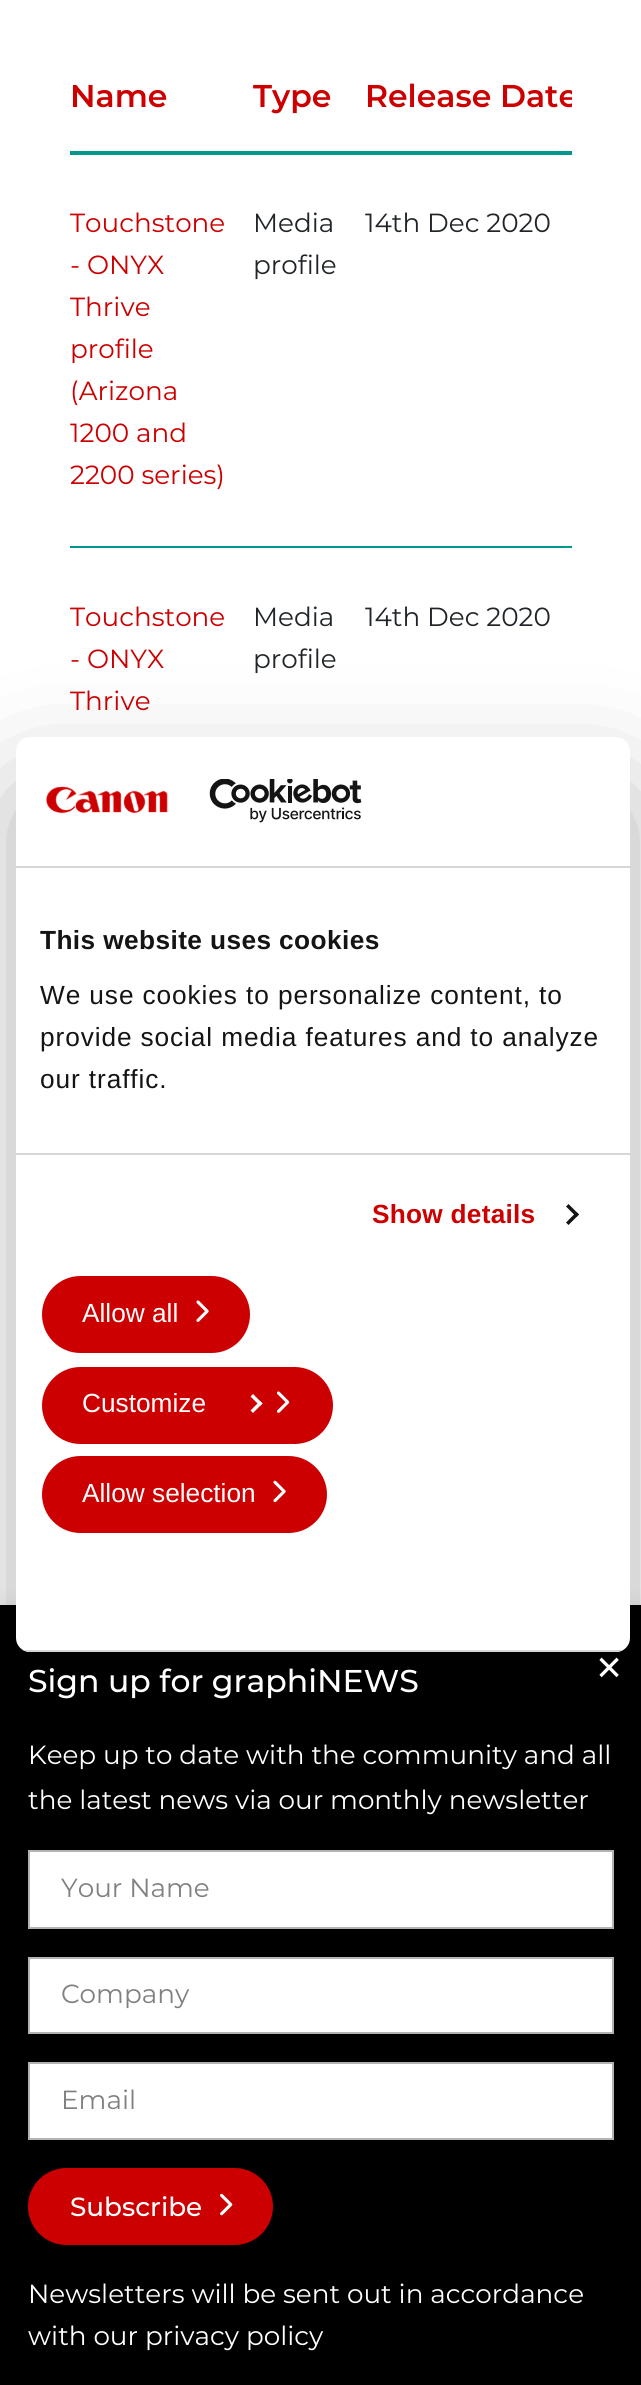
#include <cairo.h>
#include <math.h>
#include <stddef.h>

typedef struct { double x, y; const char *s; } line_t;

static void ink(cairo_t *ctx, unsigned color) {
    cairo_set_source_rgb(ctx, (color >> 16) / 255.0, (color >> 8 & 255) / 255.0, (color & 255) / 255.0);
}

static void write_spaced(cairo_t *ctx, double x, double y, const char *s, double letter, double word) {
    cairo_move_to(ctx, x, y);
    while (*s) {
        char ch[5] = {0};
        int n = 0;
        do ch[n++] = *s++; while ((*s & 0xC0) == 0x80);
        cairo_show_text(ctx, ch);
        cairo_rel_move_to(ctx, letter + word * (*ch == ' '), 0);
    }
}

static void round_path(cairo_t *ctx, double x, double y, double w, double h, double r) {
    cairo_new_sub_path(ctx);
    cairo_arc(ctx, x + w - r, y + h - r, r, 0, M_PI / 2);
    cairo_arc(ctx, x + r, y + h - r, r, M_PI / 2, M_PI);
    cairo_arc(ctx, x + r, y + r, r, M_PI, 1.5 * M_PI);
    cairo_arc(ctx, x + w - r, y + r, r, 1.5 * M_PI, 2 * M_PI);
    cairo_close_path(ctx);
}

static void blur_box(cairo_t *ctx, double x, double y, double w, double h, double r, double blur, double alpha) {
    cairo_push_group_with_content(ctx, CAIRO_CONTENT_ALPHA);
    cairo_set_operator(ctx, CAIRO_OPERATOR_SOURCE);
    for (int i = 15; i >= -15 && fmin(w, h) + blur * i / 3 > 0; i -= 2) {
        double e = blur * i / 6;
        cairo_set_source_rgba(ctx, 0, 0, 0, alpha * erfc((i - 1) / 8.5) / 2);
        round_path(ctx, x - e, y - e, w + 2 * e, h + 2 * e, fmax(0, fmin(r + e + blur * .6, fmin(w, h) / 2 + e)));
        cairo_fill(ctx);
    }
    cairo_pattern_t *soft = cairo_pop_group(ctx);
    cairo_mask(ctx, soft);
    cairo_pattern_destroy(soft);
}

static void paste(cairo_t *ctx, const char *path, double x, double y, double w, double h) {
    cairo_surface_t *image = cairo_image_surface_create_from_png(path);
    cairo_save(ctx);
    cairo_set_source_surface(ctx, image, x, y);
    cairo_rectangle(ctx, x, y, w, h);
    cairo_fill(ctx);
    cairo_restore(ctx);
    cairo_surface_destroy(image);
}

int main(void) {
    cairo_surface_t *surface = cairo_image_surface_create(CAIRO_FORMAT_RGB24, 641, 2385);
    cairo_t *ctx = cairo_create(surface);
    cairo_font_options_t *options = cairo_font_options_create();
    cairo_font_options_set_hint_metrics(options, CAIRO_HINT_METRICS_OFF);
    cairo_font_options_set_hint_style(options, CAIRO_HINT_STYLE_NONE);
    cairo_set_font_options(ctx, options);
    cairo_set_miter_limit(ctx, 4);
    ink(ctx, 0xFFFFFF);
    cairo_paint(ctx);
    cairo_select_font_face(ctx, "Montserrat SemiBold", CAIRO_FONT_SLANT_NORMAL, CAIRO_FONT_WEIGHT_NORMAL);
    cairo_set_font_size(ctx, 31.5);
    ink(ctx, 0xCC0000);
    cairo_move_to(ctx, 70, 107);
    cairo_show_text(ctx, "Name");
    cairo_move_to(ctx, 253, 107);
    cairo_show_text(ctx, "Type");
    ink(ctx, 0x00988E);
    cairo_rectangle(ctx, 70, 151, 502, 4);
    cairo_fill(ctx);
    cairo_save(ctx);
    cairo_rectangle(ctx, 70, 44, 502, 1472);
    cairo_clip(ctx);
    ink(ctx, 0xCC0000);
    cairo_move_to(ctx, 365, 107);
    cairo_show_text(ctx, "Release Date");
    cairo_restore(ctx);
    cairo_select_font_face(ctx, "Montserrat", CAIRO_FONT_SLANT_NORMAL, CAIRO_FONT_WEIGHT_NORMAL);
    cairo_set_font_size(ctx, 26.25);
    ink(ctx, 0xCC0000);
    {
        static const line_t items[] = {
            {70, 232, "Touchstone"},
            {70, 274, "- ONYX"},
            {70, 316, "Thrive"},
            {70, 358, "profile"},
            {70, 400, "(Arizona"},
            {70, 442, "1200 and"},
            {70, 484, "2200 series)"},
        };
        for (size_t i = 0; i < sizeof items / sizeof *items; i++) {
            cairo_move_to(ctx, items[i].x, items[i].y);
            cairo_show_text(ctx, items[i].s);
        }
    }
    ink(ctx, 0x212529);
    {
        static const line_t items[] = {
            {253, 232, "Media"},
            {253, 274, "profile"},
            {365, 232, "14th Dec 2020"},
        };
        for (size_t i = 0; i < sizeof items / sizeof *items; i++) {
            cairo_move_to(ctx, items[i].x, items[i].y);
            cairo_show_text(ctx, items[i].s);
        }
    }
    ink(ctx, 0xCC0000);
    {
        static const line_t items[] = {
            {70, 626, "Touchstone"},
            {70, 668, "- ONYX"},
            {70, 710, "Thrive"},
        };
        for (size_t i = 0; i < sizeof items / sizeof *items; i++) {
            cairo_move_to(ctx, items[i].x, items[i].y);
            cairo_show_text(ctx, items[i].s);
        }
    }
    ink(ctx, 0x212529);
    cairo_move_to(ctx, 253, 626);
    cairo_show_text(ctx, "Media");
    cairo_move_to(ctx, 253, 668);
    cairo_show_text(ctx, "profile");
    ink(ctx, 0x00988E);
    cairo_rectangle(ctx, 70, 546, 502, 2);
    cairo_fill(ctx);
    ink(ctx, 0x212529);
    cairo_move_to(ctx, 365, 626);
    cairo_show_text(ctx, "14th Dec 2020");
    ink(ctx, 0x000000);
    blur_box(ctx, 0, 1605, 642, 780, 0, 9, 0.1);
    ink(ctx, 0x000000);
    cairo_rectangle(ctx, 0, 1605, 641, 780);
    cairo_fill(ctx);
    ink(ctx, 0xFFFFFF);
    cairo_rectangle(ctx, 29, 1851, 584, 77);
    cairo_fill_preserve(ctx);
    ink(ctx, 0xB3B3B3);
    cairo_stroke(ctx);
    ink(ctx, 0x000000);
    blur_box(ctx, 16, 793, 614, 915, 14, 59.5, 0.3);
    ink(ctx, 0xFFFFFF);
    round_path(ctx, 16, 737, 614, 915, 14);
    cairo_fill(ctx);
    ink(ctx, 0xD6D6D6);
    cairo_rectangle(ctx, 16, 866, 614, 2);
    cairo_fill(ctx);
    paste(ctx, "media/1.png", 46, 786, 122, 28);
    paste(ctx, "media/2.png", 209, 779, 153, 44);
    cairo_rectangle(ctx, 16, 1153, 614, 2);
    cairo_fill(ctx);
    cairo_select_font_face(ctx, "Liberation Sans", CAIRO_FONT_SLANT_NORMAL, CAIRO_FONT_WEIGHT_BOLD);
    ink(ctx, 0x141414);
    write_spaced(ctx, 40, 949, "This website uses cookies", 0.4, 0);
    cairo_select_font_face(ctx, "Liberation Sans", CAIRO_FONT_SLANT_NORMAL, CAIRO_FONT_WEIGHT_NORMAL);
    {
        static const line_t items[] = {
            {40, 1004, "We use cookies to personalize content, to"},
            {40, 1046, "provide social media features and to analyze"},
            {40, 1088, "our traffic."},
        };
        for (size_t i = 0; i < sizeof items / sizeof *items; i++) {
            write_spaced(ctx, items[i].x, items[i].y, items[i].s, 0.9, 0);
        }
    }
    cairo_select_font_face(ctx, "Liberation Sans", CAIRO_FONT_SLANT_NORMAL, CAIRO_FONT_WEIGHT_BOLD);
    ink(ctx, 0xCC0000);
    write_spaced(ctx, 372, 1223, "Show details", 0.25, 0);
    ink(ctx, 0x141414);
    cairo_new_path(ctx);
    cairo_move_to(ctx, 568.5, 1204);
    cairo_line_to(ctx, 579, 1214.5);
    cairo_line_to(ctx, 576.5, 1217);
    cairo_line_to(ctx, 566, 1206.5);
    cairo_close_path(ctx);
    cairo_fill(ctx);
    cairo_new_path(ctx);
    cairo_move_to(ctx, 576.5, 1212);
    cairo_line_to(ctx, 579, 1214.5);
    cairo_line_to(ctx, 568.5, 1225);
    cairo_line_to(ctx, 566, 1222.5);
    cairo_close_path(ctx);
    cairo_fill(ctx);
    cairo_save(ctx);
    round_path(ctx, 16, 737, 614, 915, 14);
    cairo_clip(ctx);
    ink(ctx, 0xD6D6D6);
    cairo_rectangle(ctx, 16, 1650, 614, 2);
    cairo_fill(ctx);
    cairo_restore(ctx);
    ink(ctx, 0xCC0000);
    round_path(ctx, 42, 1276, 208, 77, 38.5);
    cairo_fill(ctx);
    cairo_select_font_face(ctx, "Liberation Sans", CAIRO_FONT_SLANT_NORMAL, CAIRO_FONT_WEIGHT_NORMAL);
    ink(ctx, 0xFFFFFF);
    cairo_move_to(ctx, 82, 1322);
    cairo_show_text(ctx, "Allow all");
    paste(ctx, "media/3.png", 196, 1300, 13, 22);
    ink(ctx, 0xCC0000);
    round_path(ctx, 42, 1367, 291, 77, 38.5);
    cairo_fill(ctx);
    ink(ctx, 0xFFFFFF);
    cairo_move_to(ctx, 82, 1412);
    cairo_show_text(ctx, "Customize");
    cairo_new_path(ctx);
    cairo_move_to(ctx, 253, 1394);
    cairo_line_to(ctx, 262.5, 1403.5);
    cairo_line_to(ctx, 260, 1406);
    cairo_line_to(ctx, 250.5, 1396.5);
    cairo_close_path(ctx);
    cairo_fill(ctx);
    cairo_new_path(ctx);
    cairo_move_to(ctx, 260, 1401);
    cairo_line_to(ctx, 262.5, 1403.5);
    cairo_line_to(ctx, 253, 1413);
    cairo_line_to(ctx, 250.5, 1410.5);
    cairo_close_path(ctx);
    cairo_fill(ctx);
    paste(ctx, "media/4.png", 277, 1391, 13, 22);
    ink(ctx, 0xCC0000);
    round_path(ctx, 42, 1456, 285, 77, 38.5);
    cairo_fill(ctx);
    ink(ctx, 0xFFFFFF);
    cairo_move_to(ctx, 82, 1502);
    cairo_show_text(ctx, "Allow selection");
    paste(ctx, "media/5.png", 273, 1480, 13, 23);
    cairo_select_font_face(ctx, "Montserrat Medium", CAIRO_FONT_SLANT_NORMAL, CAIRO_FONT_WEIGHT_NORMAL);
    cairo_set_font_size(ctx, 31.5);
    cairo_move_to(ctx, 28, 1692);
    cairo_show_text(ctx, "Sign up for graphiNEWS");
    cairo_select_font_face(ctx, "Montserrat", CAIRO_FONT_SLANT_NORMAL, CAIRO_FONT_WEIGHT_NORMAL);
    cairo_set_font_size(ctx, 56);
    cairo_move_to(ctx, 593, 1687);
    cairo_show_text(ctx, "×");
    cairo_set_font_size(ctx, 26.25);
    cairo_move_to(ctx, 28, 1764);
    cairo_show_text(ctx, "Keep up to date with the community and all");
    cairo_move_to(ctx, 28, 1809);
    cairo_show_text(ctx, "the latest news via our monthly newsletter");
    ink(ctx, 0x808080);
    cairo_move_to(ctx, 61, 1897);
    cairo_show_text(ctx, "Your Name");
    ink(ctx, 0xFFFFFF);
    cairo_rectangle(ctx, 29, 1958, 584, 75);
    cairo_fill_preserve(ctx);
    ink(ctx, 0xB3B3B3);
    cairo_stroke(ctx);
    ink(ctx, 0x808080);
    cairo_move_to(ctx, 61, 2003);
    cairo_show_text(ctx, "Company");
    ink(ctx, 0xFFFFFF);
    cairo_rectangle(ctx, 29, 2063, 584, 76);
    cairo_fill_preserve(ctx);
    ink(ctx, 0xB3B3B3);
    cairo_stroke(ctx);
    ink(ctx, 0x808080);
    cairo_move_to(ctx, 61, 2109);
    cairo_show_text(ctx, "Email");
    ink(ctx, 0xCC0000);
    round_path(ctx, 28, 2168, 245, 77, 38.5);
    cairo_fill(ctx);
    cairo_select_font_face(ctx, "Montserrat Medium", CAIRO_FONT_SLANT_NORMAL, CAIRO_FONT_WEIGHT_NORMAL);
    ink(ctx, 0xFFFFFF);
    cairo_move_to(ctx, 70, 2216);
    cairo_show_text(ctx, "Subscribe");
    paste(ctx, "media/6.png", 220, 2193, 13, 23);
    cairo_select_font_face(ctx, "Montserrat", CAIRO_FONT_SLANT_NORMAL, CAIRO_FONT_WEIGHT_NORMAL);
    cairo_move_to(ctx, 28, 2303);
    cairo_show_text(ctx, "Newsletters will be sent out in accordance");
    cairo_move_to(ctx, 28, 2345);
    cairo_show_text(ctx, "with our privacy policy");
    cairo_surface_write_to_png(surface, "image.png");
    cairo_font_options_destroy(options);
    cairo_destroy(ctx);
    cairo_surface_destroy(surface);
    return 0;
}
